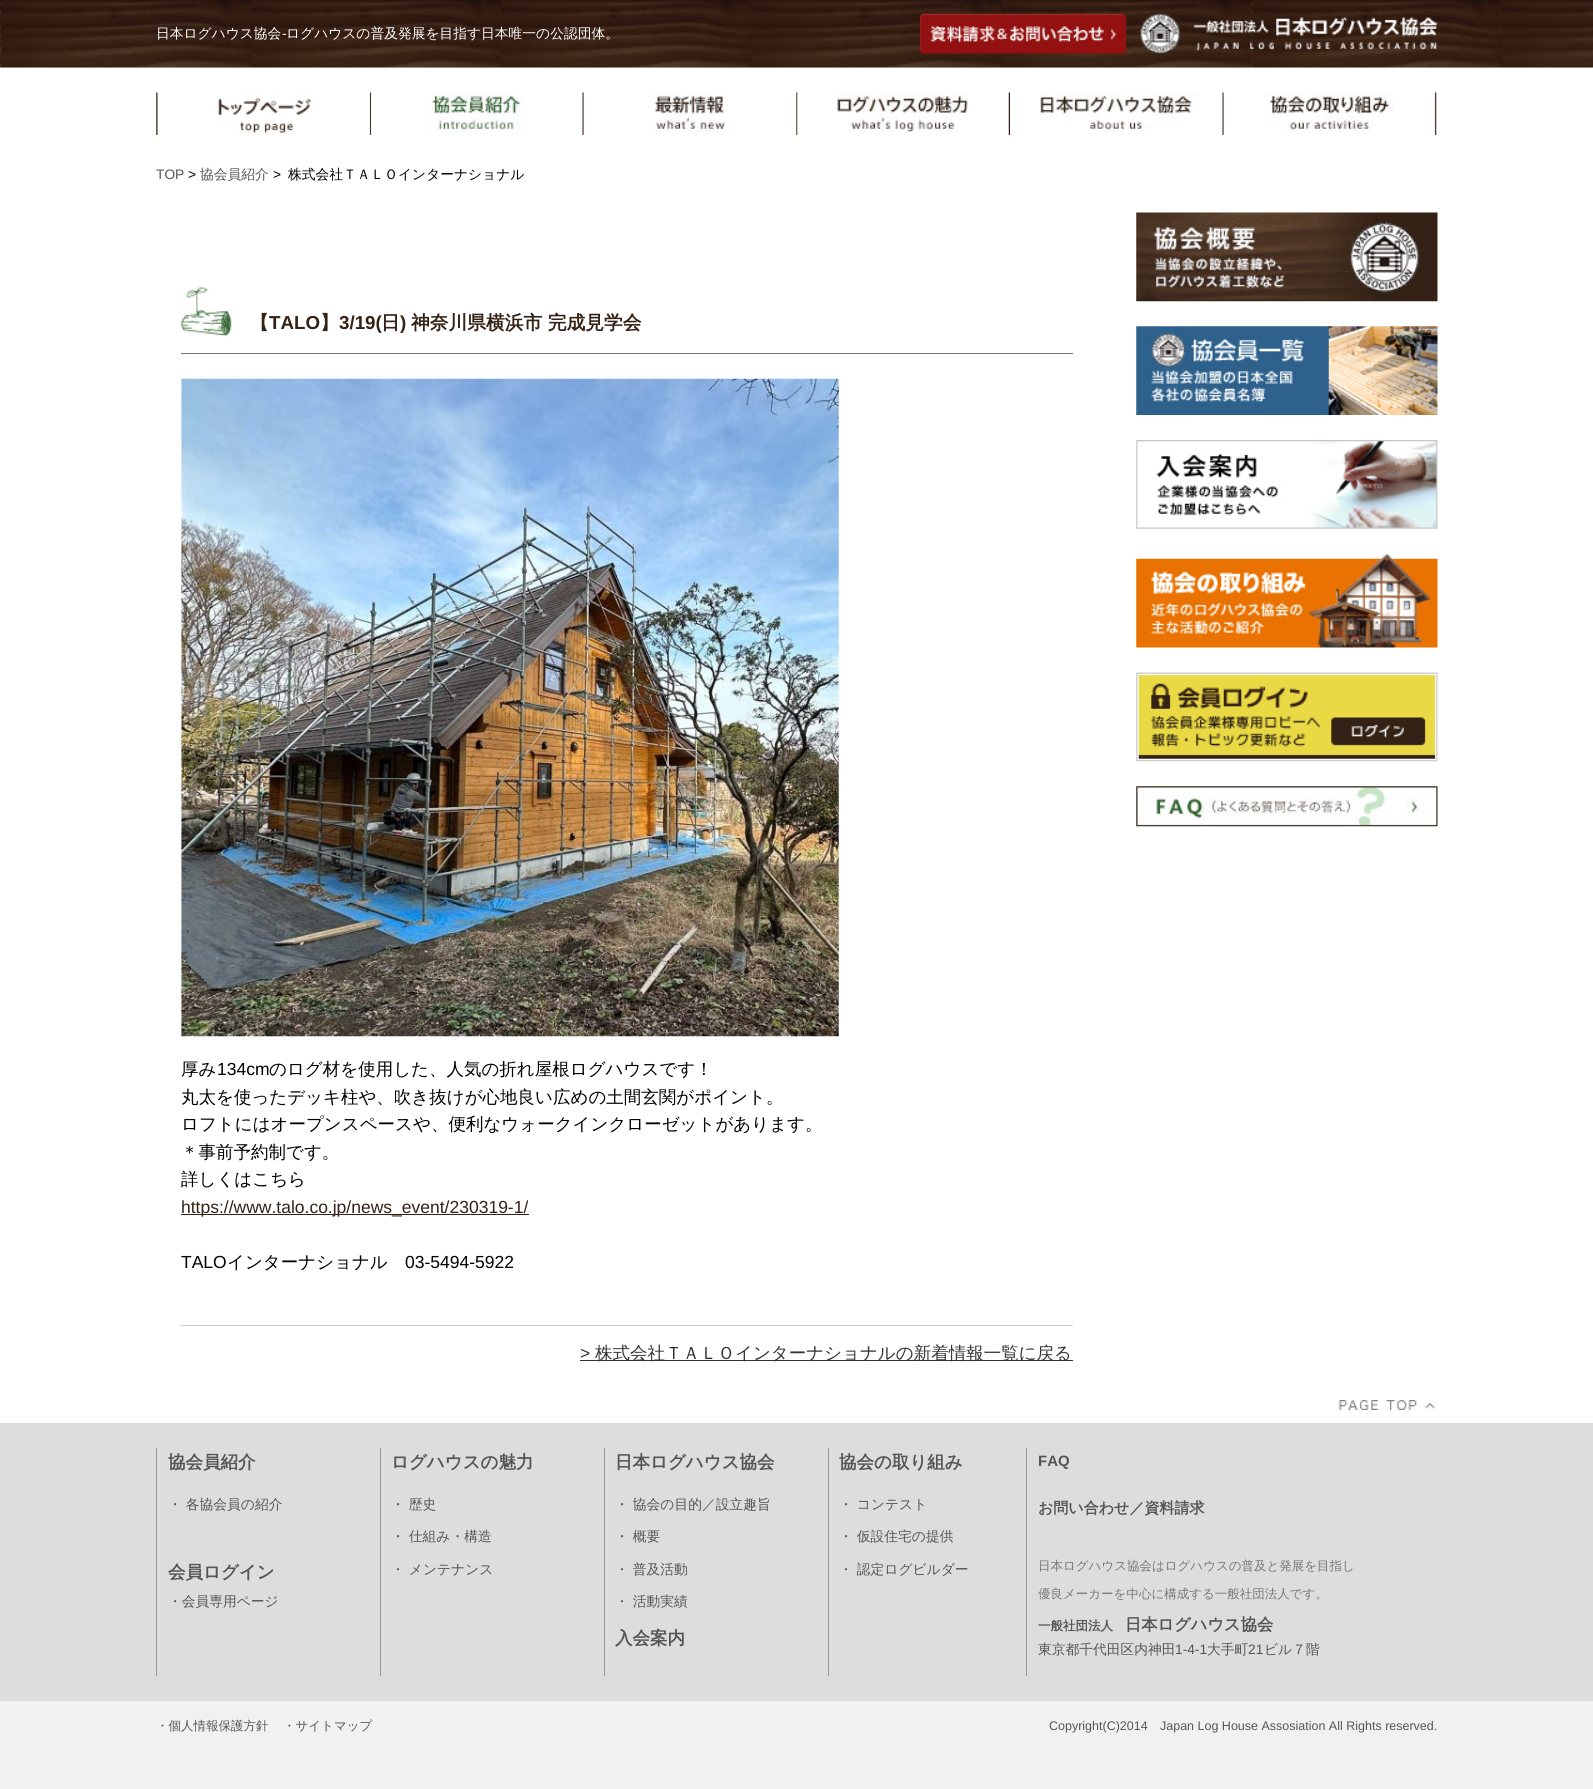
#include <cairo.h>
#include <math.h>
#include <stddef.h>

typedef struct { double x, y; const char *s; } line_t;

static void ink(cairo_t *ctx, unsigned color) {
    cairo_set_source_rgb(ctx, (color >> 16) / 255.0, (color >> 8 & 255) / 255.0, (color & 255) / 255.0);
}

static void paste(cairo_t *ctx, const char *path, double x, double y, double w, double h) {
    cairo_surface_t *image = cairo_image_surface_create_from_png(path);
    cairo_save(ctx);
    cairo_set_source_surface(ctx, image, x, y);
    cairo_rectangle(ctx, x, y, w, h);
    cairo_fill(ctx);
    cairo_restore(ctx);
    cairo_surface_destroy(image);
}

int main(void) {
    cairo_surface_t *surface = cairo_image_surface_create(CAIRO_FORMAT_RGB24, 1593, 1789);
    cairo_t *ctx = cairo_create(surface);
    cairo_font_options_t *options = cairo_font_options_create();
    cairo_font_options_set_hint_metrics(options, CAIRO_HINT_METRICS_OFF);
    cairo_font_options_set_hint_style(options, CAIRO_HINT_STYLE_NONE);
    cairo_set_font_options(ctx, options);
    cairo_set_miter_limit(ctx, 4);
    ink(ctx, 0xF1F1F1);
    cairo_paint(ctx);
    paste(ctx, "media/1.png", 0, 0, 1593, 68);
    cairo_select_font_face(ctx, "WenQuanYi Zen Hei Medium", CAIRO_FONT_SLANT_NORMAL, CAIRO_FONT_WEIGHT_NORMAL);
    cairo_set_font_size(ctx, 13.75);
    ink(ctx, 0xFFFEFE);
    cairo_move_to(ctx, 156, 38);
    cairo_show_text(ctx, "日本ログハウス協会");
    cairo_select_font_face(ctx, "Liberation Sans", CAIRO_FONT_SLANT_NORMAL, CAIRO_FONT_WEIGHT_NORMAL);
    cairo_move_to(ctx, 282, 38);
    cairo_show_text(ctx, "-");
    cairo_select_font_face(ctx, "WenQuanYi Zen Hei Medium", CAIRO_FONT_SLANT_NORMAL, CAIRO_FONT_WEIGHT_NORMAL);
    cairo_move_to(ctx, 286, 38);
    cairo_show_text(ctx, "ログハウスの普及発展を目指す日本唯一の公認団体。");
    paste(ctx, "media/2.png", 920, 13, 207, 41);
    paste(ctx, "media/3.png", 1140, 13, 298, 41);
    ink(ctx, 0xFFFFFF);
    cairo_rectangle(ctx, 0, 68, 1593, 1355);
    cairo_fill(ctx);
    paste(ctx, "media/4.png", 156, 92, 216, 43);
    paste(ctx, "media/5.png", 371, 92, 213, 43);
    paste(ctx, "media/6.png", 583, 92, 215, 43);
    paste(ctx, "media/7.png", 797, 92, 213, 43);
    paste(ctx, "media/8.png", 1040, 92, 184, 43);
    paste(ctx, "media/9.png", 1223, 92, 214, 43);
    cairo_select_font_face(ctx, "Liberation Sans", CAIRO_FONT_SLANT_NORMAL, CAIRO_FONT_WEIGHT_NORMAL);
    ink(ctx, 0x555555);
    cairo_move_to(ctx, 156, 179);
    cairo_show_text(ctx, "TOP");
    ink(ctx, 0x000000);
    cairo_move_to(ctx, 188, 179);
    cairo_show_text(ctx, ">");
    cairo_select_font_face(ctx, "WenQuanYi Zen Hei Medium", CAIRO_FONT_SLANT_NORMAL, CAIRO_FONT_WEIGHT_NORMAL);
    ink(ctx, 0x555555);
    cairo_move_to(ctx, 200, 179);
    cairo_show_text(ctx, "協会員紹介");
    cairo_select_font_face(ctx, "Liberation Sans", CAIRO_FONT_SLANT_NORMAL, CAIRO_FONT_WEIGHT_NORMAL);
    ink(ctx, 0x000000);
    cairo_move_to(ctx, 273, 179);
    cairo_show_text(ctx, ">");
    cairo_select_font_face(ctx, "WenQuanYi Zen Hei Medium", CAIRO_FONT_SLANT_NORMAL, CAIRO_FONT_WEIGHT_NORMAL);
    cairo_move_to(ctx, 288, 179);
    cairo_show_text(ctx, "株式会社ＴＡＬＯインターナショナル");
    paste(ctx, "media/10.png", 181, 287, 51, 50);
    ink(ctx, 0x777777);
    cairo_rectangle(ctx, 181, 353, 892, 1);
    cairo_fill(ctx);
    cairo_select_font_face(ctx, "WenQuanYi Zen Hei", CAIRO_FONT_SLANT_NORMAL, CAIRO_FONT_WEIGHT_BOLD);
    cairo_set_font_size(ctx, 18.75);
    ink(ctx, 0x342216);
    cairo_move_to(ctx, 250, 329);
    cairo_show_text(ctx, "【");
    cairo_select_font_face(ctx, "Liberation Sans", CAIRO_FONT_SLANT_NORMAL, CAIRO_FONT_WEIGHT_BOLD);
    cairo_move_to(ctx, 269, 329);
    cairo_show_text(ctx, "TALO");
    cairo_select_font_face(ctx, "WenQuanYi Zen Hei", CAIRO_FONT_SLANT_NORMAL, CAIRO_FONT_WEIGHT_BOLD);
    cairo_move_to(ctx, 320, 329);
    cairo_show_text(ctx, "】");
    cairo_select_font_face(ctx, "Liberation Sans", CAIRO_FONT_SLANT_NORMAL, CAIRO_FONT_WEIGHT_BOLD);
    cairo_move_to(ctx, 339, 329);
    cairo_show_text(ctx, "3/19(");
    cairo_select_font_face(ctx, "WenQuanYi Zen Hei", CAIRO_FONT_SLANT_NORMAL, CAIRO_FONT_WEIGHT_BOLD);
    cairo_move_to(ctx, 381, 329);
    cairo_show_text(ctx, "日");
    cairo_select_font_face(ctx, "Liberation Sans", CAIRO_FONT_SLANT_NORMAL, CAIRO_FONT_WEIGHT_BOLD);
    cairo_move_to(ctx, 400, 329);
    cairo_show_text(ctx, ")");
    cairo_select_font_face(ctx, "WenQuanYi Zen Hei", CAIRO_FONT_SLANT_NORMAL, CAIRO_FONT_WEIGHT_BOLD);
    cairo_move_to(ctx, 411, 329);
    cairo_show_text(ctx, "神奈川県横浜市 完成見学会");
    paste(ctx, "media/11.png", 181, 378, 658, 659);
    cairo_select_font_face(ctx, "WenQuanYi Zen Hei Medium", CAIRO_FONT_SLANT_NORMAL, CAIRO_FONT_WEIGHT_NORMAL);
    cairo_set_font_size(ctx, 17.5);
    ink(ctx, 0x000000);
    cairo_move_to(ctx, 181, 1075);
    cairo_show_text(ctx, "厚み");
    cairo_select_font_face(ctx, "Liberation Sans", CAIRO_FONT_SLANT_NORMAL, CAIRO_FONT_WEIGHT_NORMAL);
    cairo_move_to(ctx, 217, 1075);
    cairo_show_text(ctx, "134cm");
    cairo_select_font_face(ctx, "WenQuanYi Zen Hei Medium", CAIRO_FONT_SLANT_NORMAL, CAIRO_FONT_WEIGHT_NORMAL);
    {
        static const line_t items[] = {
            {269, 1075, "のログ材を使用した、人気の折れ屋根ログハウスです！"},
            {181, 1103, "丸太を使ったデッキ柱や、吹き抜けが心地良い広めの土間玄関がポイント。"},
            {181, 1130, "ロフトにはオープンスペースや、便利なウォークインクローゼットがあります。"},
            {181, 1158, "＊事前予約制です。"},
            {181, 1185, "詳しくはこちら"},
        };
        for (size_t i = 0; i < sizeof items / sizeof *items; i++) {
            cairo_move_to(ctx, items[i].x, items[i].y);
            cairo_show_text(ctx, items[i].s);
        }
    }
    ink(ctx, 0x342216);
    cairo_rectangle(ctx, 181, 1214, 348, 1);
    cairo_fill(ctx);
    cairo_select_font_face(ctx, "Liberation Sans", CAIRO_FONT_SLANT_NORMAL, CAIRO_FONT_WEIGHT_NORMAL);
    cairo_move_to(ctx, 181, 1213);
    cairo_show_text(ctx, "https://www.talo.co.jp/news_event/230319-1/");
    ink(ctx, 0x000000);
    cairo_move_to(ctx, 181, 1268);
    cairo_show_text(ctx, "TALO");
    cairo_select_font_face(ctx, "WenQuanYi Zen Hei Medium", CAIRO_FONT_SLANT_NORMAL, CAIRO_FONT_WEIGHT_NORMAL);
    cairo_move_to(ctx, 227, 1268);
    cairo_show_text(ctx, "インターナショナル");
    cairo_select_font_face(ctx, "Liberation Sans", CAIRO_FONT_SLANT_NORMAL, CAIRO_FONT_WEIGHT_NORMAL);
    cairo_move_to(ctx, 405, 1268);
    cairo_show_text(ctx, "03-5494-5922");
    ink(ctx, 0xCCCCCC);
    cairo_rectangle(ctx, 181, 1325, 892, 1);
    cairo_fill(ctx);
    ink(ctx, 0x333333);
    cairo_move_to(ctx, 580, 1359);
    cairo_show_text(ctx, ">");
    cairo_rectangle(ctx, 580, 1360, 493, 1);
    cairo_fill(ctx);
    cairo_select_font_face(ctx, "WenQuanYi Zen Hei Medium", CAIRO_FONT_SLANT_NORMAL, CAIRO_FONT_WEIGHT_NORMAL);
    cairo_move_to(ctx, 595, 1359);
    cairo_show_text(ctx, "株式会社ＴＡＬＯインターナショナルの新着情報一覧に戻る");
    paste(ctx, "media/12.png", 1136, 212, 302, 90);
    paste(ctx, "media/13.png", 1136, 326, 302, 89);
    paste(ctx, "media/14.png", 1136, 440, 302, 89);
    paste(ctx, "media/15.png", 1136, 553, 302, 95);
    paste(ctx, "media/16.png", 1136, 672, 302, 90);
    paste(ctx, "media/17.png", 1136, 786, 302, 41);
    paste(ctx, "media/18.png", 1338, 1400, 97, 10);
    ink(ctx, 0xDDDDDD);
    cairo_rectangle(ctx, 0, 1423, 1593, 278);
    cairo_fill(ctx);
    ink(ctx, 0x999999);
    cairo_rectangle(ctx, 156, 1448, 1, 228);
    cairo_fill(ctx);
    cairo_select_font_face(ctx, "WenQuanYi Zen Hei", CAIRO_FONT_SLANT_NORMAL, CAIRO_FONT_WEIGHT_BOLD);
    ink(ctx, 0x555555);
    cairo_move_to(ctx, 168, 1468);
    cairo_show_text(ctx, "協会員紹介");
    cairo_select_font_face(ctx, "WenQuanYi Zen Hei Medium", CAIRO_FONT_SLANT_NORMAL, CAIRO_FONT_WEIGHT_NORMAL);
    cairo_set_font_size(ctx, 13.75);
    cairo_move_to(ctx, 168, 1509);
    cairo_show_text(ctx, "・ 各協会員の紹介");
    cairo_select_font_face(ctx, "WenQuanYi Zen Hei", CAIRO_FONT_SLANT_NORMAL, CAIRO_FONT_WEIGHT_BOLD);
    cairo_set_font_size(ctx, 17.5);
    cairo_move_to(ctx, 168, 1578);
    cairo_show_text(ctx, "会員ログイン");
    cairo_select_font_face(ctx, "WenQuanYi Zen Hei Medium", CAIRO_FONT_SLANT_NORMAL, CAIRO_FONT_WEIGHT_NORMAL);
    cairo_set_font_size(ctx, 13.75);
    cairo_move_to(ctx, 168, 1606);
    cairo_show_text(ctx, "・会員専用ページ");
    ink(ctx, 0x999999);
    cairo_rectangle(ctx, 380, 1448, 1, 228);
    cairo_fill(ctx);
    cairo_select_font_face(ctx, "WenQuanYi Zen Hei", CAIRO_FONT_SLANT_NORMAL, CAIRO_FONT_WEIGHT_BOLD);
    cairo_set_font_size(ctx, 17.5);
    ink(ctx, 0x555555);
    cairo_move_to(ctx, 391, 1468);
    cairo_show_text(ctx, "ログハウスの魅力");
    cairo_select_font_face(ctx, "WenQuanYi Zen Hei Medium", CAIRO_FONT_SLANT_NORMAL, CAIRO_FONT_WEIGHT_NORMAL);
    cairo_set_font_size(ctx, 13.75);
    {
        static const line_t items[] = {
            {391, 1509, "・ 歴史"},
            {391, 1541, "・ 仕組み・構造"},
            {391, 1574, "・ メンテナンス"},
        };
        for (size_t i = 0; i < sizeof items / sizeof *items; i++) {
            cairo_move_to(ctx, items[i].x, items[i].y);
            cairo_show_text(ctx, items[i].s);
        }
    }
    ink(ctx, 0x999999);
    cairo_rectangle(ctx, 604, 1448, 1, 228);
    cairo_fill(ctx);
    cairo_select_font_face(ctx, "WenQuanYi Zen Hei", CAIRO_FONT_SLANT_NORMAL, CAIRO_FONT_WEIGHT_BOLD);
    cairo_set_font_size(ctx, 17.5);
    ink(ctx, 0x555555);
    cairo_move_to(ctx, 615, 1468);
    cairo_show_text(ctx, "日本ログハウス協会");
    cairo_select_font_face(ctx, "WenQuanYi Zen Hei Medium", CAIRO_FONT_SLANT_NORMAL, CAIRO_FONT_WEIGHT_NORMAL);
    cairo_set_font_size(ctx, 13.75);
    {
        static const line_t items[] = {
            {615, 1509, "・ 協会の目的／設立趣旨"},
            {615, 1541, "・ 概要"},
            {615, 1574, "・ 普及活動"},
            {615, 1606, "・ 活動実績"},
        };
        for (size_t i = 0; i < sizeof items / sizeof *items; i++) {
            cairo_move_to(ctx, items[i].x, items[i].y);
            cairo_show_text(ctx, items[i].s);
        }
    }
    cairo_select_font_face(ctx, "WenQuanYi Zen Hei", CAIRO_FONT_SLANT_NORMAL, CAIRO_FONT_WEIGHT_BOLD);
    cairo_set_font_size(ctx, 17.5);
    cairo_move_to(ctx, 615, 1644);
    cairo_show_text(ctx, "入会案内");
    ink(ctx, 0x999999);
    cairo_rectangle(ctx, 828, 1448, 1, 228);
    cairo_fill(ctx);
    ink(ctx, 0x555555);
    cairo_move_to(ctx, 839, 1468);
    cairo_show_text(ctx, "協会の取り組み");
    cairo_select_font_face(ctx, "WenQuanYi Zen Hei Medium", CAIRO_FONT_SLANT_NORMAL, CAIRO_FONT_WEIGHT_NORMAL);
    cairo_set_font_size(ctx, 13.75);
    {
        static const line_t items[] = {
            {839, 1509, "・ コンテスト"},
            {839, 1541, "・ 仮設住宅の提供"},
            {839, 1574, "・ 認定ログビルダー"},
        };
        for (size_t i = 0; i < sizeof items / sizeof *items; i++) {
            cairo_move_to(ctx, items[i].x, items[i].y);
            cairo_show_text(ctx, items[i].s);
        }
    }
    ink(ctx, 0x999999);
    cairo_rectangle(ctx, 1026, 1448, 1, 228);
    cairo_fill(ctx);
    cairo_select_font_face(ctx, "Liberation Sans", CAIRO_FONT_SLANT_NORMAL, CAIRO_FONT_WEIGHT_BOLD);
    cairo_set_font_size(ctx, 15);
    ink(ctx, 0x555555);
    cairo_move_to(ctx, 1038, 1466);
    cairo_show_text(ctx, "FAQ");
    cairo_select_font_face(ctx, "WenQuanYi Zen Hei", CAIRO_FONT_SLANT_NORMAL, CAIRO_FONT_WEIGHT_BOLD);
    cairo_move_to(ctx, 1038, 1513);
    cairo_show_text(ctx, "お問い合わせ／資料請求");
    cairo_select_font_face(ctx, "WenQuanYi Zen Hei Medium", CAIRO_FONT_SLANT_NORMAL, CAIRO_FONT_WEIGHT_NORMAL);
    cairo_set_font_size(ctx, 12.5);
    ink(ctx, 0x777777);
    cairo_move_to(ctx, 1038, 1570);
    cairo_show_text(ctx, "日本ログハウス協会はログハウスの普及と発展を目指し");
    cairo_move_to(ctx, 1038, 1598);
    cairo_show_text(ctx, "優良メーカーを中心に構成する一般社団法人です。");
    cairo_select_font_face(ctx, "WenQuanYi Zen Hei", CAIRO_FONT_SLANT_NORMAL, CAIRO_FONT_WEIGHT_BOLD);
    ink(ctx, 0x555555);
    cairo_move_to(ctx, 1038, 1630);
    cairo_show_text(ctx, "一般社団法人");
    cairo_set_font_size(ctx, 16.25);
    cairo_move_to(ctx, 1125, 1630);
    cairo_show_text(ctx, "日本ログハウス協会");
    cairo_select_font_face(ctx, "WenQuanYi Zen Hei Medium", CAIRO_FONT_SLANT_NORMAL, CAIRO_FONT_WEIGHT_NORMAL);
    cairo_set_font_size(ctx, 13.75);
    cairo_move_to(ctx, 1038, 1654);
    cairo_show_text(ctx, "東京都千代田区内神田");
    cairo_select_font_face(ctx, "Liberation Sans", CAIRO_FONT_SLANT_NORMAL, CAIRO_FONT_WEIGHT_NORMAL);
    cairo_move_to(ctx, 1175, 1654);
    cairo_show_text(ctx, "1-4-1");
    cairo_select_font_face(ctx, "WenQuanYi Zen Hei Medium", CAIRO_FONT_SLANT_NORMAL, CAIRO_FONT_WEIGHT_NORMAL);
    cairo_move_to(ctx, 1207, 1654);
    cairo_show_text(ctx, "大手町");
    cairo_select_font_face(ctx, "Liberation Sans", CAIRO_FONT_SLANT_NORMAL, CAIRO_FONT_WEIGHT_NORMAL);
    cairo_move_to(ctx, 1248, 1654);
    cairo_show_text(ctx, "21");
    cairo_select_font_face(ctx, "WenQuanYi Zen Hei Medium", CAIRO_FONT_SLANT_NORMAL, CAIRO_FONT_WEIGHT_NORMAL);
    cairo_move_to(ctx, 1264, 1654);
    cairo_show_text(ctx, "ビル７階");
    cairo_set_font_size(ctx, 12.5);
    cairo_move_to(ctx, 156, 1730);
    cairo_show_text(ctx, "・個人情報保護方針");
    cairo_move_to(ctx, 283, 1730);
    cairo_show_text(ctx, "・サイトマップ");
    cairo_select_font_face(ctx, "Liberation Sans", CAIRO_FONT_SLANT_NORMAL, CAIRO_FONT_WEIGHT_NORMAL);
    cairo_move_to(ctx, 1049, 1730);
    cairo_show_text(ctx, "Copyright(C)2014");
    cairo_move_to(ctx, 1160, 1730);
    cairo_show_text(ctx, "Japan Log House Assosiation All Rights reserved.");
    cairo_surface_write_to_png(surface, "image.png");
    cairo_font_options_destroy(options);
    cairo_destroy(ctx);
    cairo_surface_destroy(surface);
    return 0;
}
